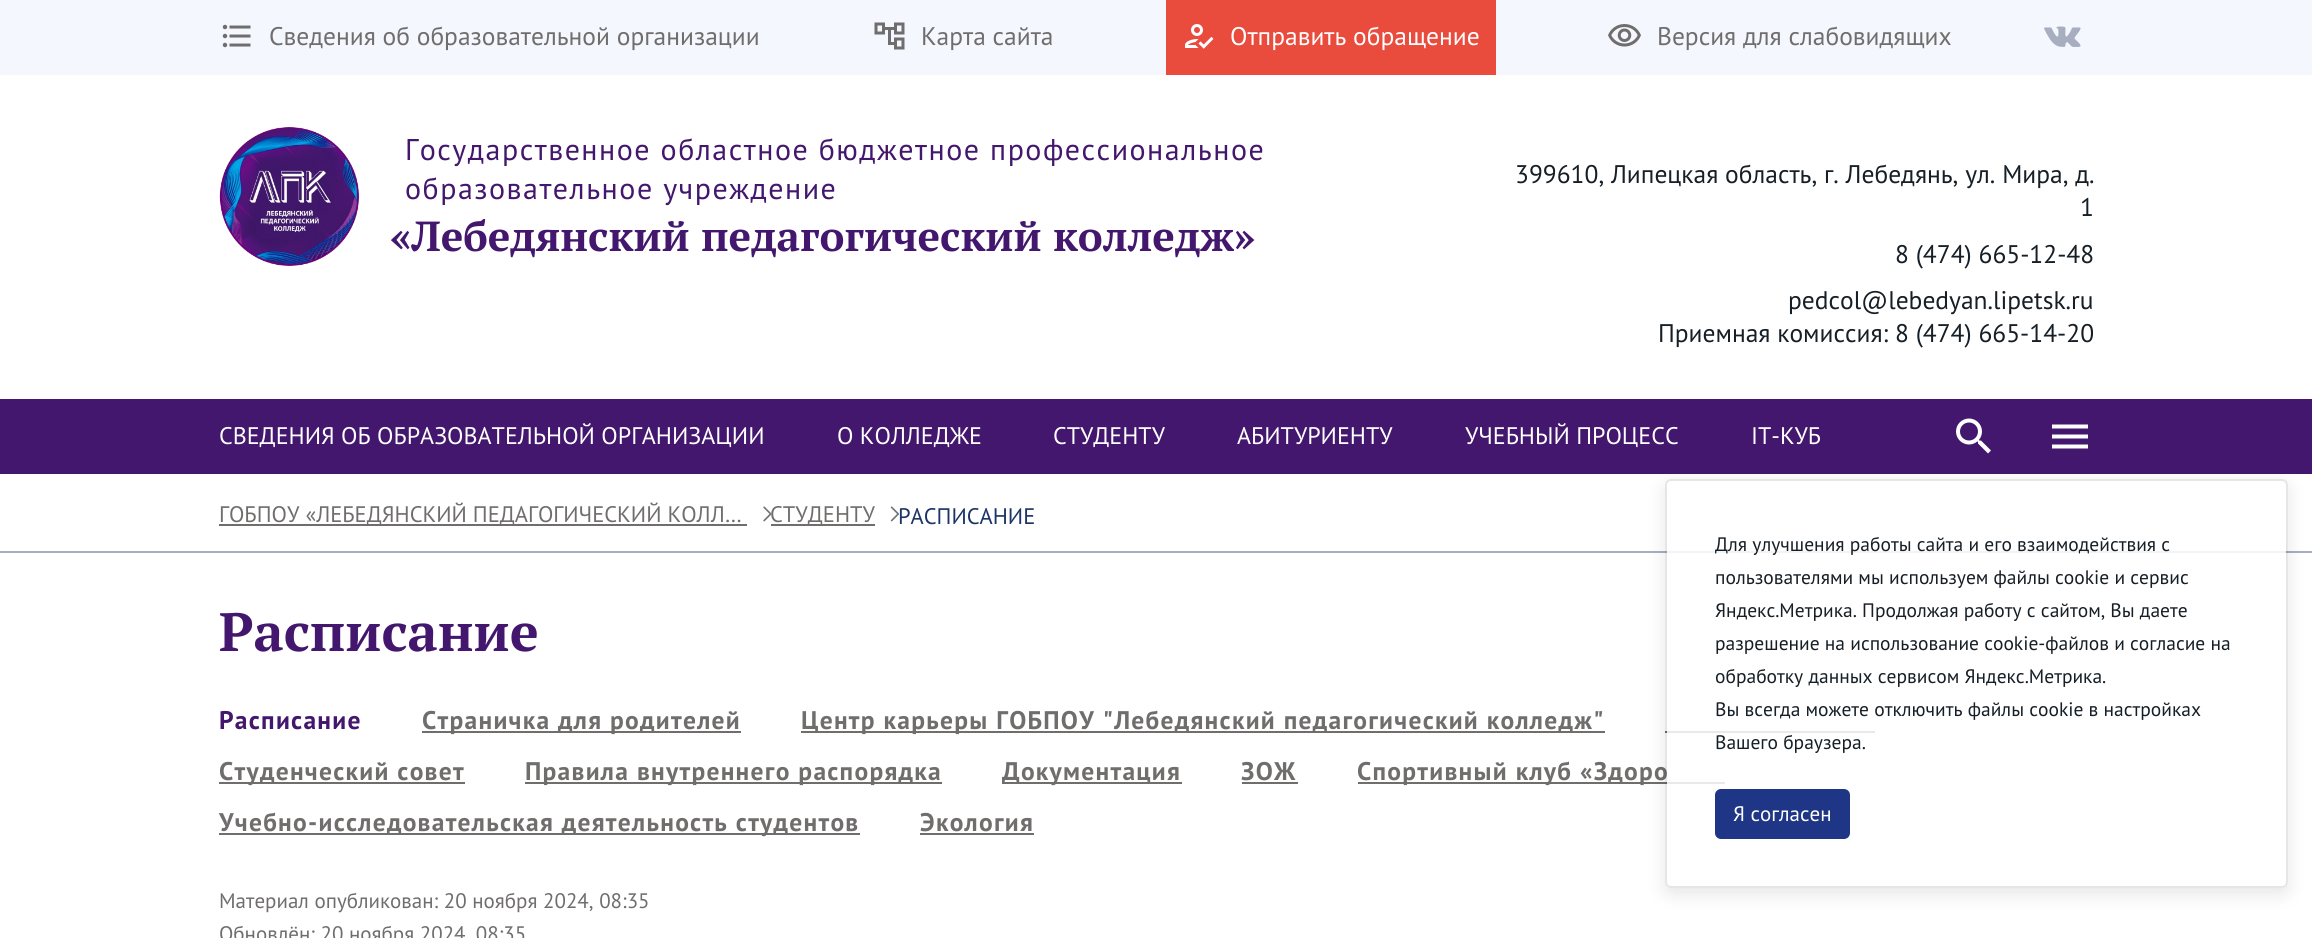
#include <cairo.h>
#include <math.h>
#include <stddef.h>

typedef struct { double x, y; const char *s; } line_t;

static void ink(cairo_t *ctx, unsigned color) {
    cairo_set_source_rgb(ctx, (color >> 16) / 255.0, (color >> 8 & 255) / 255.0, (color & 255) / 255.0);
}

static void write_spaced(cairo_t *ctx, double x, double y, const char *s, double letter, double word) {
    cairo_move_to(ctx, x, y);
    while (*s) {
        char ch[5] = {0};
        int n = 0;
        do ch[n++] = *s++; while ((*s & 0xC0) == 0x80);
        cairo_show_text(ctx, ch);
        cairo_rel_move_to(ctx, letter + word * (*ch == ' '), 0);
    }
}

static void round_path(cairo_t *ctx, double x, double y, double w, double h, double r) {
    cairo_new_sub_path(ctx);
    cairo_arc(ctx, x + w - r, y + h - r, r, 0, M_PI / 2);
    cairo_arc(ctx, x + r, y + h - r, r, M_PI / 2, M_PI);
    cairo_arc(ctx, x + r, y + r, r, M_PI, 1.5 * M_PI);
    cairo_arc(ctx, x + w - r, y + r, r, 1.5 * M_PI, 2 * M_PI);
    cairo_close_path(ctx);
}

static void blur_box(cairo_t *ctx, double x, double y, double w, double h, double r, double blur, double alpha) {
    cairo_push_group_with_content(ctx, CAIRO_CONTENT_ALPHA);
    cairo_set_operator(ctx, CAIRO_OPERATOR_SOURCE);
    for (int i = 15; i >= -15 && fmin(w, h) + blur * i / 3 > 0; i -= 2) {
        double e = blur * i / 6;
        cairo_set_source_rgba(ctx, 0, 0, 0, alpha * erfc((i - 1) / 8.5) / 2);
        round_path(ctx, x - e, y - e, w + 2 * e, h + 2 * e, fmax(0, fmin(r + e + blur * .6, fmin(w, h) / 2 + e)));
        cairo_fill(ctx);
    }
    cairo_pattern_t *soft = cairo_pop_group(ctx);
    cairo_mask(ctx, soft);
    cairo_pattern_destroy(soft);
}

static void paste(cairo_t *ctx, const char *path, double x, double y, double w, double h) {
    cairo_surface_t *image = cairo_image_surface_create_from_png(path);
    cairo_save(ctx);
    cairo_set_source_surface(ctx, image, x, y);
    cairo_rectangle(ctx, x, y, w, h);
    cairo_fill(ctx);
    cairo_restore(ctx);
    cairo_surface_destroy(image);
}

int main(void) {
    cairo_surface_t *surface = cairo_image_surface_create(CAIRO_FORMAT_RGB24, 2312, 938);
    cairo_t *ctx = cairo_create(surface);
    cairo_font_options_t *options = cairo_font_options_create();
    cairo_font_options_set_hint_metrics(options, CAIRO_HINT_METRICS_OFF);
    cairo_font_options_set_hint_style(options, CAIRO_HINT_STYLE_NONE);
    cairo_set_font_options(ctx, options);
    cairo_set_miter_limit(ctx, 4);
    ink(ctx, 0xFFFFFF);
    cairo_paint(ctx);
    ink(ctx, 0xF4F7FD);
    cairo_rectangle(ctx, 0, 0, 2312, 75);
    cairo_fill(ctx);
    paste(ctx, "media/1.png", 222, 24, 29, 24);
    cairo_select_font_face(ctx, "PT Sans", CAIRO_FONT_SLANT_NORMAL, CAIRO_FONT_WEIGHT_NORMAL);
    cairo_set_font_size(ctx, 25.5);
    ink(ctx, 0x706D6D);
    cairo_move_to(ctx, 269, 45);
    cairo_show_text(ctx, "Сведения об образовательной организации");
    paste(ctx, "media/2.png", 874, 22, 31, 28);
    cairo_move_to(ctx, 921, 45);
    cairo_show_text(ctx, "Карта сайта");
    ink(ctx, 0xE94B3D);
    cairo_rectangle(ctx, 1166, 0, 330, 75);
    cairo_fill(ctx);
    paste(ctx, "media/3.png", 1185, 24, 29, 25);
    ink(ctx, 0xFFFFFF);
    cairo_move_to(ctx, 1230, 45);
    cairo_show_text(ctx, "Отправить обращение");
    paste(ctx, "media/4.png", 1608, 24, 33, 23);
    ink(ctx, 0x706D6D);
    cairo_move_to(ctx, 1657, 45);
    cairo_show_text(ctx, "Версия для слабовидящих");
    paste(ctx, "media/5.png", 2044, 26, 37, 21);
    paste(ctx, "media/6.png", 219, 127, 141, 139);
    cairo_set_font_size(ctx, 30);
    ink(ctx, 0x43176D);
    write_spaced(ctx, 405, 160, "Государственное областное бюджетное профессиональное", 1.5, 0);
    write_spaced(ctx, 405, 199, "образовательное учреждение", 1.5, 0);
    cairo_select_font_face(ctx, "PT Serif", CAIRO_FONT_SLANT_NORMAL, CAIRO_FONT_WEIGHT_BOLD);
    cairo_set_font_size(ctx, 42);
    cairo_move_to(ctx, 390, 251);
    cairo_show_text(ctx, "«Лебедянский педагогический колледж»");
    cairo_select_font_face(ctx, "PT Sans", CAIRO_FONT_SLANT_NORMAL, CAIRO_FONT_WEIGHT_NORMAL);
    cairo_set_font_size(ctx, 25.5);
    ink(ctx, 0x161E26);
    {
        static const line_t items[] = {
            {1515, 183, "399610, Липецкая область, г. Лебедянь, ул. Мира, д."},
            {2080, 216, "1"},
            {1895, 263, "8 (474) 665-12-48"},
            {1788, 309, "pedcol@lebedyan.lipetsk.ru"},
            {1658, 342, "Приемная комиссия: 8 (474) 665-14-20"},
        };
        for (size_t i = 0; i < sizeof items / sizeof *items; i++) {
            cairo_move_to(ctx, items[i].x, items[i].y);
            cairo_show_text(ctx, items[i].s);
        }
    }
    ink(ctx, 0x43176D);
    cairo_rectangle(ctx, 0, 399, 2312, 75);
    cairo_fill(ctx);
    cairo_set_font_size(ctx, 24);
    ink(ctx, 0xFFFFFF);
    {
        static const line_t items[] = {
            {219, 444, "СВЕДЕНИЯ ОБ ОБРАЗОВАТЕЛЬНОЙ ОРГАНИЗАЦИИ"},
            {837, 444, "О КОЛЛЕДЖЕ"},
            {1053, 444, "СТУДЕНТУ"},
            {1237, 444, "АБИТУРИЕНТУ"},
            {1465, 444, "УЧЕБНЫЙ ПРОЦЕСС"},
            {1751, 444, "IT-КУБ"},
        };
        for (size_t i = 0; i < sizeof items / sizeof *items; i++) {
            cairo_move_to(ctx, items[i].x, items[i].y);
            cairo_show_text(ctx, items[i].s);
        }
    }
    paste(ctx, "media/7.png", 1956, 418, 35, 36);
    cairo_new_path(ctx);
    cairo_move_to(ctx, 2052, 448.5);
    cairo_line_to(ctx, 2088, 448.5);
    cairo_line_to(ctx, 2088, 444.5);
    cairo_line_to(ctx, 2052, 444.5);
    cairo_close_path(ctx);
    cairo_move_to(ctx, 2052, 438.5);
    cairo_line_to(ctx, 2088, 438.5);
    cairo_line_to(ctx, 2088, 434.5);
    cairo_line_to(ctx, 2052, 434.5);
    cairo_close_path(ctx);
    cairo_move_to(ctx, 2052, 424.5);
    cairo_line_to(ctx, 2052, 428.5);
    cairo_line_to(ctx, 2088, 428.5);
    cairo_line_to(ctx, 2088, 424.5);
    cairo_close_path(ctx);
    cairo_fill(ctx);
    ink(ctx, 0xA6AEBF);
    cairo_rectangle(ctx, 0, 551, 2312, 2);
    cairo_fill(ctx);
    ink(ctx, 0x706D6D);
    cairo_rectangle(ctx, 219, 524, 528, 2);
    cairo_fill(ctx);
    cairo_set_font_size(ctx, 22.5);
    cairo_move_to(ctx, 219, 522);
    cairo_show_text(ctx, "ГОБПОУ «ЛЕБЕДЯНСКИЙ ПЕДАГОГИЧЕСКИЙ КОЛЛ…");
    cairo_rectangle(ctx, 771, 524, 104, 2);
    cairo_fill(ctx);
    cairo_move_to(ctx, 770, 522);
    cairo_show_text(ctx, "СТУДЕНТУ");
    paste(ctx, "media/8.png", 763, 506, 9, 16);
    paste(ctx, "media/9.png", 890, 506, 9, 16);
    ink(ctx, 0x1C3467);
    cairo_move_to(ctx, 898, 524);
    cairo_show_text(ctx, "РАСПИСАНИЕ");
    cairo_select_font_face(ctx, "PT Serif", CAIRO_FONT_SLANT_NORMAL, CAIRO_FONT_WEIGHT_BOLD);
    cairo_set_font_size(ctx, 54);
    ink(ctx, 0x43176D);
    cairo_move_to(ctx, 219, 651);
    cairo_show_text(ctx, "Расписание");
    cairo_select_font_face(ctx, "PT Sans", CAIRO_FONT_SLANT_NORMAL, CAIRO_FONT_WEIGHT_BOLD);
    cairo_set_font_size(ctx, 25.5);
    write_spaced(ctx, 219, 729, "Расписание", 1.27, 0);
    ink(ctx, 0x706D6D);
    cairo_rectangle(ctx, 422, 731, 319, 2);
    cairo_fill(ctx);
    write_spaced(ctx, 422, 729, "Страничка для родителей", 1.27, 0);
    cairo_rectangle(ctx, 801, 731, 804, 2);
    cairo_fill(ctx);
    write_spaced(ctx, 801, 729, "Центр карьеры ГОБПОУ \"Лебедянский педагогический колледж\"", 1.27, 0);
    cairo_rectangle(ctx, 1665, 731, 210, 2);
    cairo_fill(ctx);
    cairo_rectangle(ctx, 219, 782, 246, 2);
    cairo_fill(ctx);
    write_spaced(ctx, 219, 780, "Студенческий совет", 1.27, 0);
    cairo_rectangle(ctx, 525, 782, 417, 2);
    cairo_fill(ctx);
    write_spaced(ctx, 525, 780, "Правила внутреннего распорядка", 1.27, 0);
    cairo_rectangle(ctx, 1002, 782, 180, 2);
    cairo_fill(ctx);
    write_spaced(ctx, 1002, 780, "Документация", 1.27, 0);
    write_spaced(ctx, 1241, 780, "ЗОЖ", 1.27, 0);
    cairo_rectangle(ctx, 1242, 782, 56, 2);
    cairo_fill(ctx);
    cairo_rectangle(ctx, 1358, 782, 367, 2);
    cairo_fill(ctx);
    write_spaced(ctx, 1357, 780, "Спортивный клуб «Здоро", 1.27, 0);
    cairo_rectangle(ctx, 219, 833, 641, 2);
    cairo_fill(ctx);
    write_spaced(ctx, 219, 831, "Учебно-исследовательская деятельность студентов", 1.27, 0);
    write_spaced(ctx, 920, 831, "Экология", 1.27, 0);
    cairo_rectangle(ctx, 920, 833, 114, 2);
    cairo_fill(ctx);
    cairo_select_font_face(ctx, "PT Sans", CAIRO_FONT_SLANT_NORMAL, CAIRO_FONT_WEIGHT_NORMAL);
    cairo_set_font_size(ctx, 21);
    cairo_move_to(ctx, 219, 908);
    cairo_show_text(ctx, "Материал опубликован: 20 ноября 2024, 08:35");
    cairo_move_to(ctx, 219, 941);
    cairo_show_text(ctx, "Обновлён: 20 ноября 2024, 08:35");
    cairo_save(ctx);
    cairo_set_fill_rule(ctx, CAIRO_FILL_RULE_EVEN_ODD);
    cairo_new_path(ctx);
    cairo_move_to(ctx, 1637, 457);
    cairo_line_to(ctx, 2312, 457);
    cairo_line_to(ctx, 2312, 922);
    cairo_line_to(ctx, 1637, 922);
    cairo_close_path(ctx);
    cairo_move_to(ctx, 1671, 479);
    cairo_line_to(ctx, 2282, 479);
    cairo_curve_to(ctx, 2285.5, 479, 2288, 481.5, 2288, 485);
    cairo_line_to(ctx, 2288, 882);
    cairo_curve_to(ctx, 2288, 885.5, 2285.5, 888, 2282, 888);
    cairo_line_to(ctx, 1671, 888);
    cairo_curve_to(ctx, 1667.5, 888, 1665, 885.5, 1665, 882);
    cairo_line_to(ctx, 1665, 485);
    cairo_curve_to(ctx, 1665, 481.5, 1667.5, 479, 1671, 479);
    cairo_close_path(ctx);
    cairo_clip(ctx);
    ink(ctx, 0x000000);
    blur_box(ctx, 1665, 485, 623, 409, 6, 9, 0.1);
    cairo_restore(ctx);
    cairo_set_source_rgba(ctx, 1, 1, 1, 0.85);
    round_path(ctx, 1667, 480, 619, 407, 5);
    cairo_fill(ctx);
    round_path(ctx, 1666, 480, 621, 407, 5);
    cairo_set_source_rgba(ctx, 0, 0, 0, 0.1);
    cairo_stroke(ctx);
    cairo_set_font_size(ctx, 19.5);
    ink(ctx, 0x161E26);
    {
        static const line_t items[] = {
            {1715, 551, "Для улучшения работы сайта и его взаимодействия с"},
            {1715, 584, "пользователями мы используем файлы cookie и сервис"},
            {1715, 617, "Яндекс.Метрика. Продолжая работу с сайтом, Вы даете"},
            {1715, 650, "разрешение на использование cookie-файлов и согласие на"},
            {1715, 683, "обработку данных сервисом Яндекс.Метрика."},
            {1715, 716, "Вы всегда можете отключить файлы cookie в настройках"},
            {1715, 749, "Вашего браузера."},
        };
        for (size_t i = 0; i < sizeof items / sizeof *items; i++) {
            cairo_move_to(ctx, items[i].x, items[i].y);
            cairo_show_text(ctx, items[i].s);
        }
    }
    ink(ctx, 0x1E3685);
    round_path(ctx, 1715, 789, 135, 50, 6);
    cairo_fill(ctx);
    cairo_set_font_size(ctx, 21);
    ink(ctx, 0xFFFFFF);
    cairo_move_to(ctx, 1733, 821);
    cairo_show_text(ctx, "Я согласен");
    cairo_surface_write_to_png(surface, "image.png");
    cairo_font_options_destroy(options);
    cairo_destroy(ctx);
    cairo_surface_destroy(surface);
    return 0;
}
